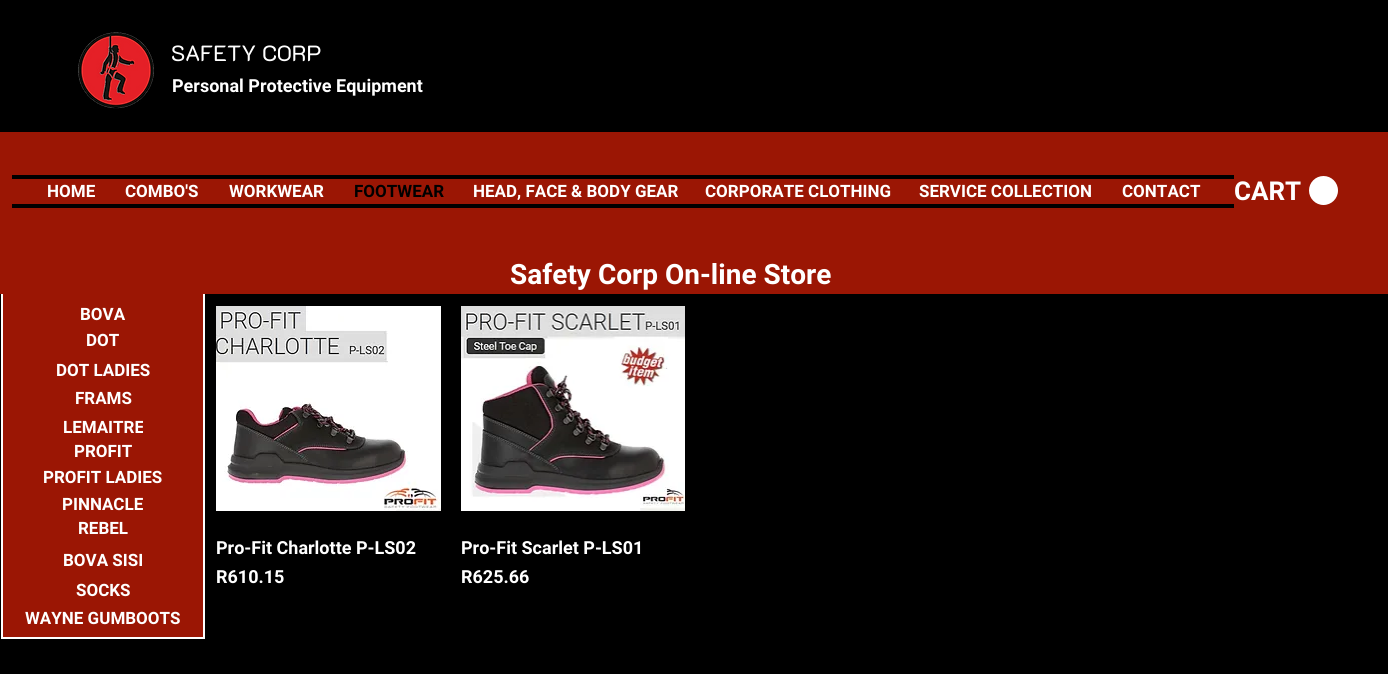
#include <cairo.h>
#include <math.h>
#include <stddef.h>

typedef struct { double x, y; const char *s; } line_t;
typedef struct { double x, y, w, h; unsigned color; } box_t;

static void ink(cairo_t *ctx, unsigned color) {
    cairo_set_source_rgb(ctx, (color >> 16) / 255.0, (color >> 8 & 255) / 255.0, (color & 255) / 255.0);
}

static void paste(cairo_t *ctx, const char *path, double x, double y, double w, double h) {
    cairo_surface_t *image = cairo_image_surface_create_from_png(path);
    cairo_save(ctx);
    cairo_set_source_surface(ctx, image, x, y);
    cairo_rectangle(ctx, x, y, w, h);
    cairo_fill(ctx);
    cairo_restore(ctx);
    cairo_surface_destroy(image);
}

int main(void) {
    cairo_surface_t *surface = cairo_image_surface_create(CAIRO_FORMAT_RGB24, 1388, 674);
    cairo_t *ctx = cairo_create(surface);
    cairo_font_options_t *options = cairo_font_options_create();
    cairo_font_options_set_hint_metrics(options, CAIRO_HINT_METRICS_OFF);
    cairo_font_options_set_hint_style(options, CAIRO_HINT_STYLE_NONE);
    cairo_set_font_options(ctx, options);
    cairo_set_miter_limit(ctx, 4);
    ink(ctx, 0x000000);
    cairo_paint(ctx);
    paste(ctx, "media/1.png", 78, 32, 76, 77);
    cairo_select_font_face(ctx, "K2D", CAIRO_FONT_SLANT_NORMAL, CAIRO_FONT_WEIGHT_NORMAL);
    cairo_set_font_size(ctx, 22);
    ink(ctx, 0xFFFFFF);
    cairo_move_to(ctx, 171, 61);
    cairo_show_text(ctx, "SAFETY CORP");
    cairo_select_font_face(ctx, "Roboto", CAIRO_FONT_SLANT_NORMAL, CAIRO_FONT_WEIGHT_BOLD);
    cairo_set_font_size(ctx, 18);
    cairo_move_to(ctx, 172, 92);
    cairo_show_text(ctx, "Personal Protective Equipment");
    ink(ctx, 0x9B1604);
    cairo_rectangle(ctx, 3, 294, 200, 343);
    cairo_fill(ctx);
    cairo_rectangle(ctx, 2, 288, 202, 350);
    ink(ctx, 0xFFFFFF);
    cairo_stroke(ctx);
    {
        static const box_t items[] = {
            {0, 132, 1388, 162, 0x9B1604},
            {12, 175, 1222, 4, 0x000000},
            {12, 204, 1222, 4, 0x000000},
        };
        for (size_t i = 0; i < sizeof items / sizeof *items; i++) {
            ink(ctx, items[i].color);
            cairo_rectangle(ctx, items[i].x, items[i].y, items[i].w, items[i].h);
            cairo_fill(ctx);
        }
    }
    cairo_set_font_size(ctx, 17);
    ink(ctx, 0xFFFFFF);
    {
        static const line_t items[] = {
            {47, 197, "HOME"},
            {125, 197, "COMBO'S"},
            {229, 197, "WORKWEAR"},
        };
        for (size_t i = 0; i < sizeof items / sizeof *items; i++) {
            cairo_move_to(ctx, items[i].x, items[i].y);
            cairo_show_text(ctx, items[i].s);
        }
    }
    ink(ctx, 0x000000);
    cairo_move_to(ctx, 354, 197);
    cairo_show_text(ctx, "FOOTWEAR");
    ink(ctx, 0xFFFFFF);
    {
        static const line_t items[] = {
            {473, 197, "HEAD, FACE & BODY GEAR"},
            {705, 197, "CORPORATE CLOTHING"},
            {919, 197, "SERVICE COLLECTION"},
            {1122, 197, "CONTACT"},
        };
        for (size_t i = 0; i < sizeof items / sizeof *items; i++) {
            cairo_move_to(ctx, items[i].x, items[i].y);
            cairo_show_text(ctx, items[i].s);
        }
    }
    cairo_new_path(ctx);
    cairo_arc(ctx, 1323.5, 190.5, 14.5, 0, 2 * M_PI);
    cairo_fill(ctx);
    cairo_set_font_size(ctx, 26);
    cairo_move_to(ctx, 1234, 200);
    cairo_show_text(ctx, "CART");
    cairo_set_font_size(ctx, 28);
    cairo_move_to(ctx, 510, 284);
    cairo_show_text(ctx, "Safety Corp On-line Store");
    cairo_set_font_size(ctx, 17);
    {
        static const line_t items[] = {
            {80, 320, "BOVA"},
            {86, 346, "DOT"},
            {56, 376, "DOT LADIES"},
            {75, 404, "FRAMS"},
        };
        for (size_t i = 0; i < sizeof items / sizeof *items; i++) {
            cairo_move_to(ctx, items[i].x, items[i].y);
            cairo_show_text(ctx, items[i].s);
        }
    }
    cairo_save(ctx);
    cairo_rectangle(ctx, 63, 418, 80, 19);
    cairo_clip(ctx);
    cairo_move_to(ctx, 63, 433);
    cairo_show_text(ctx, "LEMAITRE");
    cairo_restore(ctx);
    {
        static const line_t items[] = {
            {74, 457, "PROFIT"},
            {43, 483, "PROFIT LADIES"},
            {62, 510, "PINNACLE"},
            {78, 534, "REBEL"},
            {63, 566, "BOVA SISI"},
            {76, 596, "SOCKS"},
            {25, 624, "WAYNE GUMBOOTS"},
        };
        for (size_t i = 0; i < sizeof items / sizeof *items; i++) {
            cairo_move_to(ctx, items[i].x, items[i].y);
            cairo_show_text(ctx, items[i].s);
        }
    }
    paste(ctx, "media/2.png", 216, 306, 225, 205);
    cairo_set_font_size(ctx, 18);
    cairo_move_to(ctx, 216, 554);
    cairo_show_text(ctx, "Pro-Fit Charlotte P-LS02");
    cairo_move_to(ctx, 216, 583);
    cairo_show_text(ctx, "R610.15");
    paste(ctx, "media/3.png", 461, 306, 224, 205);
    cairo_move_to(ctx, 461, 554);
    cairo_show_text(ctx, "Pro-Fit Scarlet P-LS01");
    cairo_move_to(ctx, 461, 583);
    cairo_show_text(ctx, "R625.66");
    cairo_surface_write_to_png(surface, "image.png");
    cairo_font_options_destroy(options);
    cairo_destroy(ctx);
    cairo_surface_destroy(surface);
    return 0;
}
